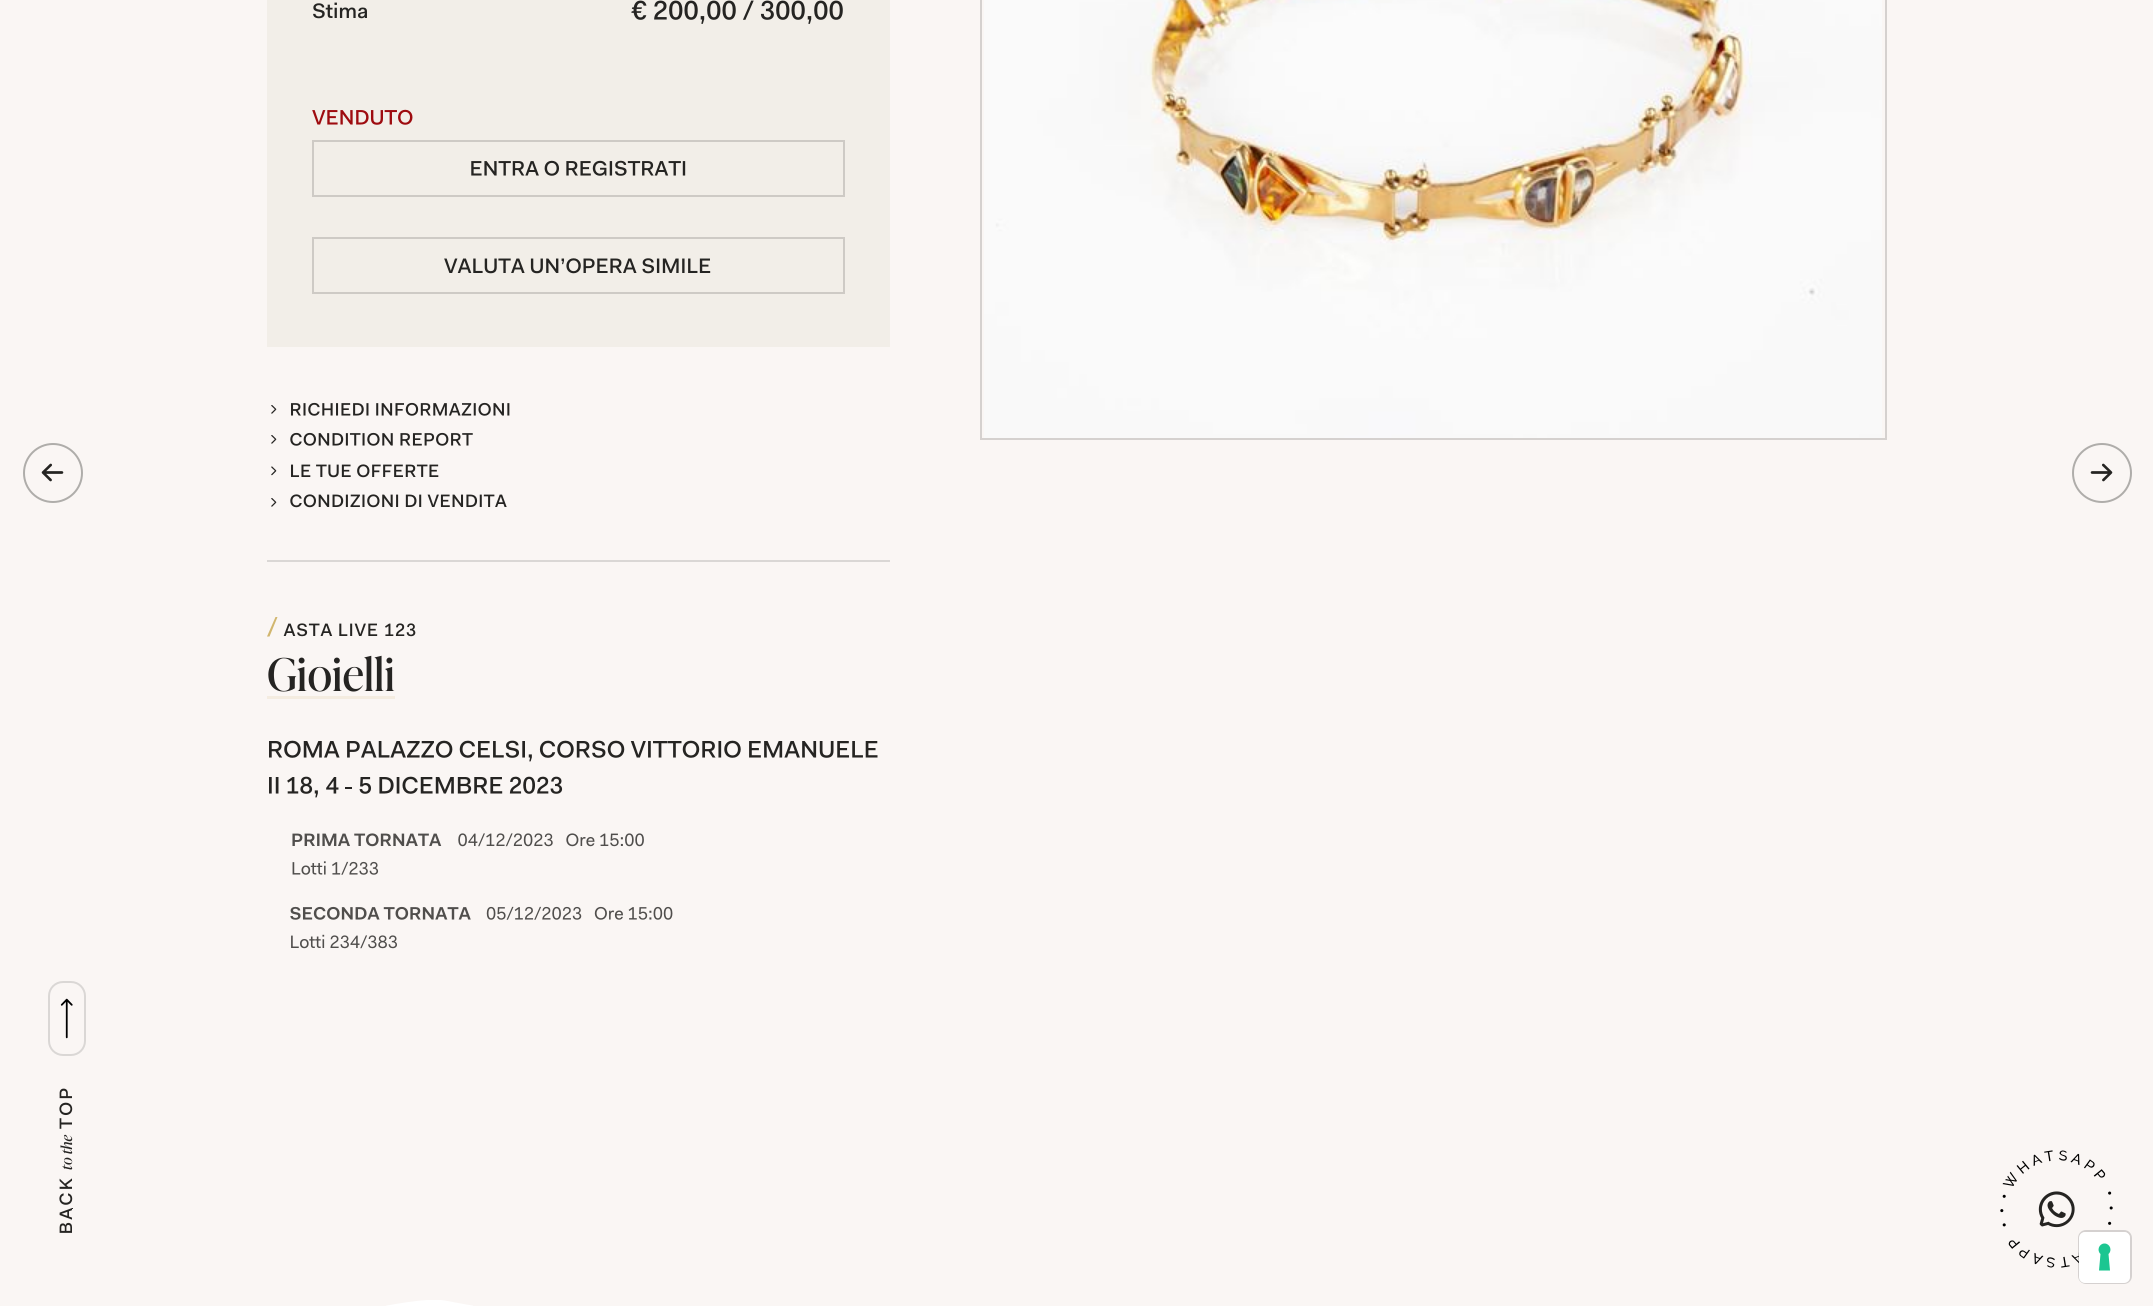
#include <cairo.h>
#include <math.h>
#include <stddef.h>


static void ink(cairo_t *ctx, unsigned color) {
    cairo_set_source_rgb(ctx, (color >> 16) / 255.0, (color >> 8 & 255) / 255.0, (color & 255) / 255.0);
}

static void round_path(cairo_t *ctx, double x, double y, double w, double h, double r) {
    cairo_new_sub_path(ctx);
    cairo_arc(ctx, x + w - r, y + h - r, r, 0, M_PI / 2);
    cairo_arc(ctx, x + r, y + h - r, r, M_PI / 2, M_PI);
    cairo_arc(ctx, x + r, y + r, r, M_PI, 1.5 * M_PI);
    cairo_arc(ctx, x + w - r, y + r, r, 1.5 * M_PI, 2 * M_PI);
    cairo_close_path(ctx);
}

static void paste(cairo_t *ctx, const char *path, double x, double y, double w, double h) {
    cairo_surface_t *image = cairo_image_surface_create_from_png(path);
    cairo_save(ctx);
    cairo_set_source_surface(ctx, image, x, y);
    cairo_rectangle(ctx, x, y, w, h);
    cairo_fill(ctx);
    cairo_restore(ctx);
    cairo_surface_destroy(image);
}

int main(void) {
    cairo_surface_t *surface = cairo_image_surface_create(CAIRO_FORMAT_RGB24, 2153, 1306);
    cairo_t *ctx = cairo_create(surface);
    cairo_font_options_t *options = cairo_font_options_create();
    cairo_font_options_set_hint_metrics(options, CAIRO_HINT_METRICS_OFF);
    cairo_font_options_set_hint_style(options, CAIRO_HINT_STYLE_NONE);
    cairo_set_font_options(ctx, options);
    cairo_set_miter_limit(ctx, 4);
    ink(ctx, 0xFAF6F4);
    cairo_paint(ctx);
    cairo_arc(ctx, 53, 473, 29, 0, 2 * M_PI);
    ink(ctx, 0xAFADAA);
    cairo_stroke(ctx);
    paste(ctx, "media/1.png", 41, 463, 23, 19);
    cairo_arc(ctx, 2102, 473, 29, 0, 2 * M_PI);
    cairo_stroke(ctx);
    paste(ctx, "media/2.png", 2090, 463, 23, 19);
    cairo_rectangle(ctx, 981, -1, 905, 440);
    ink(ctx, 0xD5D1CF);
    cairo_stroke(ctx);
    paste(ctx, "media/3.png", 984, 0, 898, 438);
    ink(ctx, 0xF2EEE8);
    cairo_rectangle(ctx, 267, 0, 623, 347);
    cairo_fill(ctx);
    paste(ctx, "media/4.png", 313, 2, 54, 17);
    paste(ctx, "media/5.png", 631, 0, 212, 24);
    paste(ctx, "media/6.png", 312, 109, 101, 16);
    cairo_rectangle(ctx, 313, 141, 531, 55);
    ink(ctx, 0xCECAC5);
    cairo_stroke(ctx);
    paste(ctx, "media/7.png", 471, 160, 215, 16);
    cairo_rectangle(ctx, 313, 238, 531, 55);
    cairo_stroke(ctx);
    paste(ctx, "media/8.png", 444, 258, 267, 16);
    paste(ctx, "media/9.png", 271, 405, 6, 9);
    paste(ctx, "media/10.png", 291, 402, 219, 14);
    paste(ctx, "media/9.png", 271, 435, 6, 9);
    paste(ctx, "media/11.png", 290, 432, 183, 14);
    paste(ctx, "media/12.png", 271, 466, 6, 10);
    paste(ctx, "media/13.png", 291, 464, 148, 14);
    paste(ctx, "media/9.png", 271, 498, 6, 9);
    paste(ctx, "media/14.png", 290, 494, 217, 14);
    ink(ctx, 0xDAD7D5);
    cairo_rectangle(ctx, 267, 560, 623, 2);
    cairo_fill(ctx);
    ink(ctx, 0xD1B66E);
    cairo_new_path(ctx);
    cairo_move_to(ctx, 267, 636.5);
    cairo_line_to(ctx, 275.5, 617);
    cairo_line_to(ctx, 277.5, 617);
    cairo_line_to(ctx, 269.5, 636.5);
    cairo_close_path(ctx);
    cairo_fill(ctx);
    paste(ctx, "media/15.png", 283, 623, 95, 14);
    paste(ctx, "media/16.png", 385, 623, 31, 14);
    cairo_select_font_face(ctx, "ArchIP", CAIRO_FONT_SLANT_NORMAL, CAIRO_FONT_WEIGHT_NORMAL);
    cairo_set_font_size(ctx, 45);
    ink(ctx, 0x252422);
    cairo_move_to(ctx, 267, 691);
    cairo_show_text(ctx, "Gioielli");
    ink(ctx, 0xF4ECE0);
    cairo_rectangle(ctx, 267, 696, 128, 3);
    cairo_fill(ctx);
    paste(ctx, "media/17.png", 269, 740, 609, 22);
    paste(ctx, "media/18.png", 269, 776, 49, 22);
    paste(ctx, "media/19.png", 326, 777, 13, 17);
    ink(ctx, 0x252422);
    cairo_rectangle(ctx, 345, 787, 7, 2);
    cairo_fill(ctx);
    paste(ctx, "media/20.png", 359, 776, 204, 18);
    paste(ctx, "media/21.png", 292, 833, 150, 14);
    paste(ctx, "media/22.png", 458, 833, 186, 14);
    paste(ctx, "media/23.png", 292, 861, 87, 14);
    paste(ctx, "media/24.png", 290, 906, 181, 14);
    paste(ctx, "media/25.png", 486, 906, 187, 14);
    paste(ctx, "media/26.png", 291, 934, 106, 15);
    paste(ctx, "media/27.png", 60, 998, 13, 41);
    round_path(ctx, 49, 982, 36, 73, 14);
    ink(ctx, 0xDAD7D5);
    cairo_stroke(ctx);
    paste(ctx, "media/28.png", 59, 1088, 14, 41);
    cairo_select_font_face(ctx, "ArchIP", CAIRO_FONT_SLANT_ITALIC, CAIRO_FONT_WEIGHT_NORMAL);
    cairo_set_font_size(ctx, 15);
    ink(ctx, 0x252422);
    cairo_save(ctx);
    cairo_translate(ctx, 72, 1170);
    cairo_rotate(ctx, -90 * M_PI / 180);
    cairo_move_to(ctx, 0, 0);
    cairo_show_text(ctx, "to the");
    cairo_restore(ctx);
    paste(ctx, "media/29.png", 59, 1178, 14, 55);
    paste(ctx, "media/30.png", 2000, 1150, 113, 118);
    paste(ctx, "media/31.png", 2038, 1191, 37, 37);
    paste(ctx, "media/32.png", 386, 1300, 87, 6);
    round_path(ctx, 2079, 1231, 52, 52, 7);
    cairo_set_source_rgba(ctx, 0, 0, 0, 0.15);
    cairo_stroke(ctx);
    ink(ctx, 0xFFFFFF);
    round_path(ctx, 2079, 1232, 51, 51, 6);
    cairo_fill(ctx);
    ink(ctx, 0x1CC691);
    cairo_set_fill_rule(ctx, CAIRO_FILL_RULE_EVEN_ODD);
    cairo_new_path(ctx);
    cairo_move_to(ctx, 2104.5, 1243.5);
    cairo_curve_to(ctx, 2110, 1243.5, 2112.5, 1250.5, 2108.5, 1254);
    cairo_line_to(ctx, 2110, 1270.5);
    cairo_line_to(ctx, 2099, 1270.5);
    cairo_line_to(ctx, 2100.5, 1254);
    cairo_curve_to(ctx, 2096.5, 1250.5, 2099, 1243.5, 2104.5, 1243.5);
    cairo_close_path(ctx);
    cairo_fill(ctx);
    cairo_surface_write_to_png(surface, "image.png");
    cairo_font_options_destroy(options);
    cairo_destroy(ctx);
    cairo_surface_destroy(surface);
    return 0;
}
